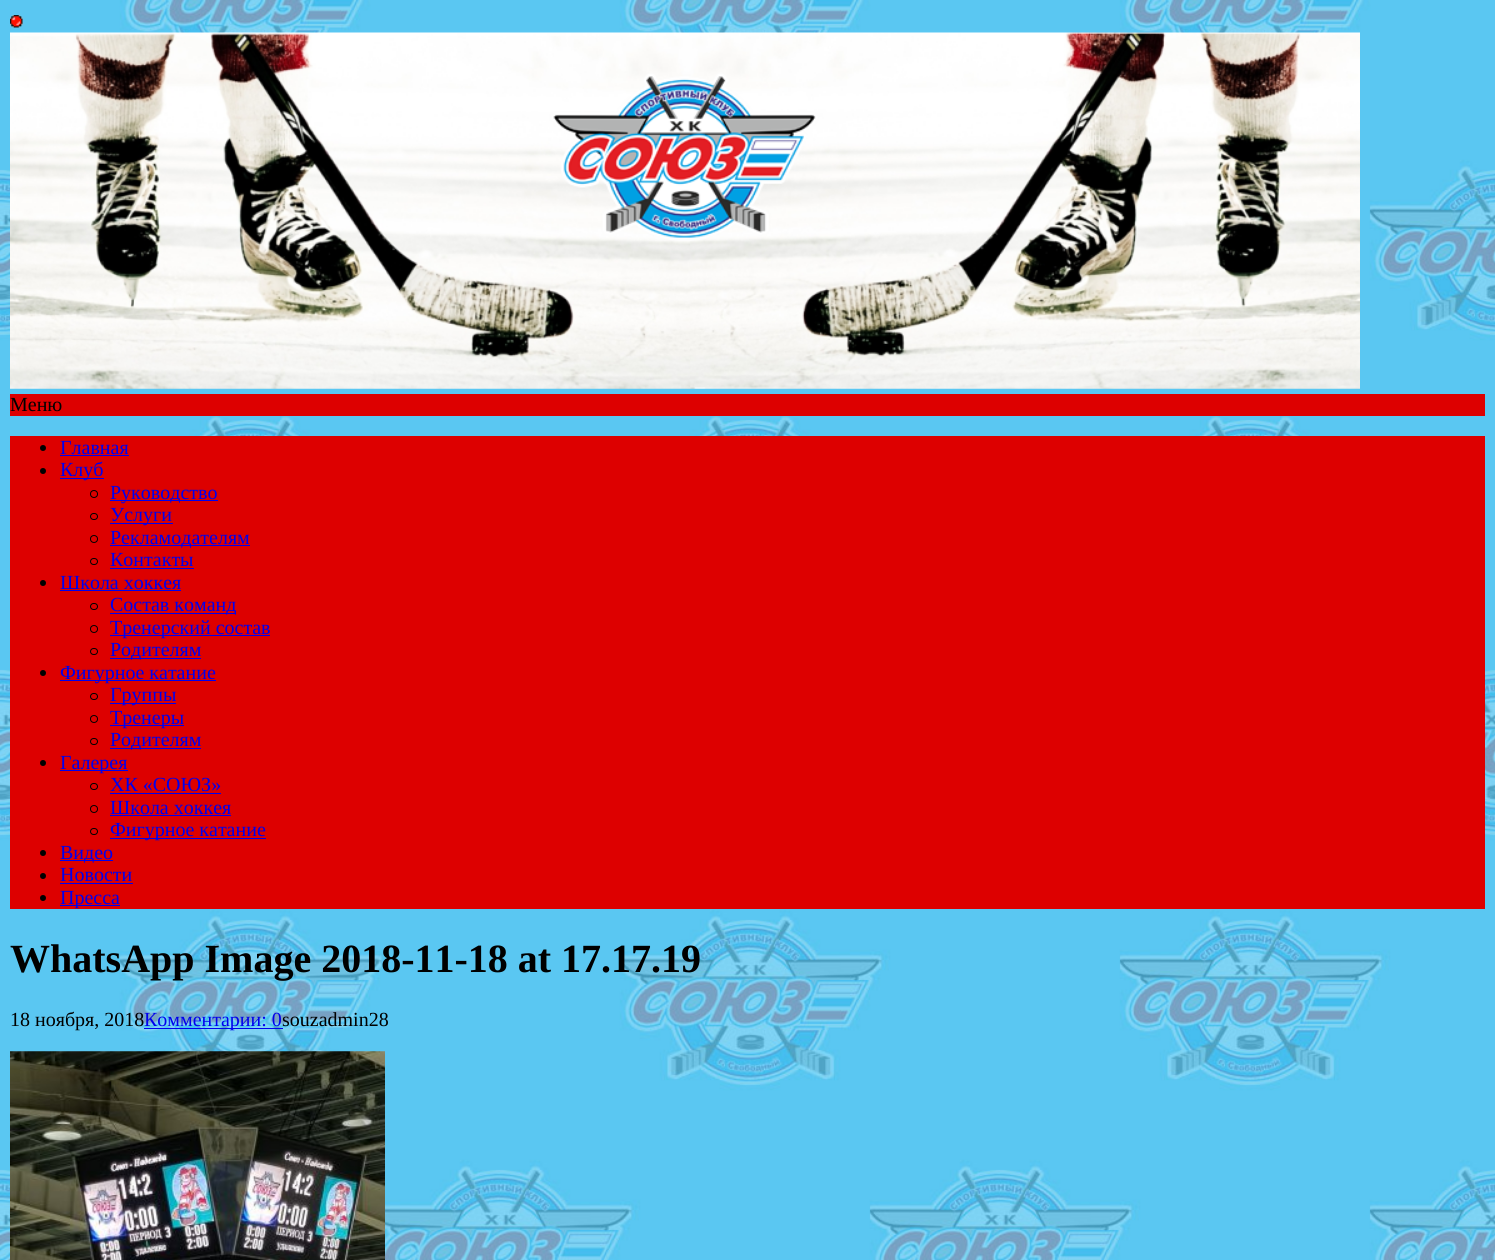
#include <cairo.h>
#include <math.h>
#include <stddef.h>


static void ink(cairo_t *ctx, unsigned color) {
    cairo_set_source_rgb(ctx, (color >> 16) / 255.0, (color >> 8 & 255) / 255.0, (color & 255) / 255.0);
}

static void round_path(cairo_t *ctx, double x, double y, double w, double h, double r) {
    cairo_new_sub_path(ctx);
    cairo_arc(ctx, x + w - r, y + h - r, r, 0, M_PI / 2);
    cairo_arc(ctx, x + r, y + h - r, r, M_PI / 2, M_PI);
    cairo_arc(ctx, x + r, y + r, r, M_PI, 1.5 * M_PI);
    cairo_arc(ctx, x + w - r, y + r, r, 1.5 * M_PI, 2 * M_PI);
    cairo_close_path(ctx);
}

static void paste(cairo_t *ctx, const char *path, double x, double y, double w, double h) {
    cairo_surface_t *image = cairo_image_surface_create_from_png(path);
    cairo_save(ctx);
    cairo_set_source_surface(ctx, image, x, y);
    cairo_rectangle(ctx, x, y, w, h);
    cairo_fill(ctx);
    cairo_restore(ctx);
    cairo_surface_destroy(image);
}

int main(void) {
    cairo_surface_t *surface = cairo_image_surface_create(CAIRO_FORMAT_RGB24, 1495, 1260);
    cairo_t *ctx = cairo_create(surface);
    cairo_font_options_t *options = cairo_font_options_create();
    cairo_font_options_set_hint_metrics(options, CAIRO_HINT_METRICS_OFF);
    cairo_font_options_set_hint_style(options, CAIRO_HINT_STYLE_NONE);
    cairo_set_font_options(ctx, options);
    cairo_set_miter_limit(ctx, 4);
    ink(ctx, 0xFFFFFF);
    cairo_paint(ctx);
    paste(ctx, "media/1.png", 0, 0, 1495, 1260);
    paste(ctx, "media/2.png", 10, 15, 13, 13);
    paste(ctx, "media/3.png", 10, 32, 1350, 357);
    ink(ctx, 0xDD0000);
    cairo_rectangle(ctx, 10, 394, 1475, 22);
    cairo_fill(ctx);
    cairo_select_font_face(ctx, "Liberation Serif", CAIRO_FONT_SLANT_NORMAL, CAIRO_FONT_WEIGHT_NORMAL);
    cairo_set_font_size(ctx, 20);
    ink(ctx, 0x000000);
    cairo_move_to(ctx, 10, 411);
    cairo_show_text(ctx, "Меню");
    ink(ctx, 0xDD0000);
    cairo_rectangle(ctx, 10, 436, 1475, 473);
    cairo_fill(ctx);
    ink(ctx, 0x000000);
    cairo_arc(ctx, 43, 448, 3, 0, 2 * M_PI);
    cairo_fill(ctx);
    ink(ctx, 0x0000EE);
    cairo_move_to(ctx, 60, 454);
    cairo_show_text(ctx, "Главная");
    cairo_rectangle(ctx, 60, 455, 69, 1);
    cairo_fill(ctx);
    ink(ctx, 0x000000);
    cairo_arc(ctx, 43, 471, 3, 0, 2 * M_PI);
    cairo_fill(ctx);
    ink(ctx, 0x0000EE);
    cairo_rectangle(ctx, 60, 478, 44, 1);
    cairo_fill(ctx);
    cairo_move_to(ctx, 60, 476);
    cairo_show_text(ctx, "Клуб");
    cairo_new_path(ctx);
    cairo_arc(ctx, 94, 494, 3.5, 0, 2 * M_PI);
    ink(ctx, 0x000000);
    cairo_set_line_width(ctx, 1);
    cairo_stroke(ctx);
    ink(ctx, 0x0000EE);
    cairo_rectangle(ctx, 110, 500, 108, 1);
    cairo_fill(ctx);
    cairo_move_to(ctx, 110, 499);
    cairo_show_text(ctx, "Руководство");
    round_path(ctx, 90.5, 513.5, 7, 6, 3);
    ink(ctx, 0x000000);
    cairo_stroke(ctx);
    ink(ctx, 0x0000EE);
    cairo_rectangle(ctx, 110, 523, 63, 1);
    cairo_fill(ctx);
    cairo_move_to(ctx, 110, 521);
    cairo_show_text(ctx, "Услуги");
    cairo_new_path(ctx);
    cairo_arc(ctx, 94, 539, 3.5, 0, 2 * M_PI);
    ink(ctx, 0x000000);
    cairo_stroke(ctx);
    ink(ctx, 0x0000EE);
    cairo_rectangle(ctx, 110, 545, 140, 1);
    cairo_fill(ctx);
    cairo_move_to(ctx, 110, 544);
    cairo_show_text(ctx, "Рекламодателям");
    round_path(ctx, 90.5, 558.5, 7, 6, 3);
    ink(ctx, 0x000000);
    cairo_stroke(ctx);
    ink(ctx, 0x0000EE);
    cairo_move_to(ctx, 110, 566);
    cairo_show_text(ctx, "Контакты");
    cairo_rectangle(ctx, 110, 568, 84, 1);
    cairo_fill(ctx);
    ink(ctx, 0x000000);
    cairo_arc(ctx, 43, 583, 3, 0, 2 * M_PI);
    cairo_fill(ctx);
    ink(ctx, 0x0000EE);
    cairo_move_to(ctx, 60, 589);
    cairo_show_text(ctx, "Школа хоккея");
    cairo_rectangle(ctx, 60, 590, 121, 1);
    cairo_fill(ctx);
    round_path(ctx, 90.5, 603.5, 7, 6, 3);
    ink(ctx, 0x000000);
    cairo_stroke(ctx);
    ink(ctx, 0x0000EE);
    cairo_rectangle(ctx, 110, 613, 126, 1);
    cairo_fill(ctx);
    cairo_move_to(ctx, 110, 611);
    cairo_show_text(ctx, "Состав команд");
    cairo_new_path(ctx);
    cairo_arc(ctx, 94, 629, 3.5, 0, 2 * M_PI);
    ink(ctx, 0x000000);
    cairo_stroke(ctx);
    ink(ctx, 0x0000EE);
    cairo_rectangle(ctx, 110, 635, 160, 1);
    cairo_fill(ctx);
    cairo_move_to(ctx, 110, 634);
    cairo_show_text(ctx, "Тренерский состав");
    round_path(ctx, 90.5, 648.5, 7, 6, 3);
    ink(ctx, 0x000000);
    cairo_stroke(ctx);
    ink(ctx, 0x0000EE);
    cairo_rectangle(ctx, 110, 658, 91, 1);
    cairo_fill(ctx);
    cairo_move_to(ctx, 110, 656);
    cairo_show_text(ctx, "Родителям");
    ink(ctx, 0x000000);
    cairo_new_path(ctx);
    cairo_arc(ctx, 43, 673, 3, 0, 2 * M_PI);
    cairo_fill(ctx);
    ink(ctx, 0x0000EE);
    cairo_rectangle(ctx, 60, 680, 156, 1);
    cairo_fill(ctx);
    cairo_move_to(ctx, 60, 679);
    cairo_show_text(ctx, "Фигурное катание");
    round_path(ctx, 90.5, 693.5, 7, 6, 3);
    ink(ctx, 0x000000);
    cairo_stroke(ctx);
    ink(ctx, 0x0000EE);
    cairo_rectangle(ctx, 110, 703, 66, 1);
    cairo_fill(ctx);
    cairo_move_to(ctx, 110, 701);
    cairo_show_text(ctx, "Группы");
    cairo_new_path(ctx);
    cairo_arc(ctx, 94, 719, 3.5, 0, 2 * M_PI);
    ink(ctx, 0x000000);
    cairo_stroke(ctx);
    ink(ctx, 0x0000EE);
    cairo_rectangle(ctx, 110, 725, 74, 1);
    cairo_fill(ctx);
    cairo_move_to(ctx, 110, 724);
    cairo_show_text(ctx, "Тренеры");
    round_path(ctx, 90.5, 738.5, 7, 6, 3);
    ink(ctx, 0x000000);
    cairo_stroke(ctx);
    ink(ctx, 0x0000EE);
    cairo_rectangle(ctx, 110, 748, 91, 1);
    cairo_fill(ctx);
    cairo_move_to(ctx, 110, 746);
    cairo_show_text(ctx, "Родителям");
    ink(ctx, 0x000000);
    cairo_new_path(ctx);
    cairo_arc(ctx, 43, 763, 3, 0, 2 * M_PI);
    cairo_fill(ctx);
    ink(ctx, 0x0000EE);
    cairo_rectangle(ctx, 60, 770, 68, 1);
    cairo_fill(ctx);
    cairo_move_to(ctx, 60, 769);
    cairo_show_text(ctx, "Галерея");
    round_path(ctx, 90.5, 783.5, 7, 6, 3);
    ink(ctx, 0x000000);
    cairo_stroke(ctx);
    ink(ctx, 0x0000EE);
    cairo_move_to(ctx, 110, 791);
    cairo_show_text(ctx, "ХК «СОЮЗ»");
    cairo_rectangle(ctx, 110, 793, 111, 1);
    cairo_fill(ctx);
    cairo_arc(ctx, 94, 809, 3.5, 0, 2 * M_PI);
    ink(ctx, 0x000000);
    cairo_stroke(ctx);
    ink(ctx, 0x0000EE);
    cairo_move_to(ctx, 110, 814);
    cairo_show_text(ctx, "Школа хоккея");
    cairo_rectangle(ctx, 110, 815, 121, 1);
    cairo_fill(ctx);
    round_path(ctx, 90.5, 828.5, 7, 6, 3);
    ink(ctx, 0x000000);
    cairo_stroke(ctx);
    ink(ctx, 0x0000EE);
    cairo_rectangle(ctx, 110, 838, 156, 1);
    cairo_fill(ctx);
    cairo_move_to(ctx, 110, 836);
    cairo_show_text(ctx, "Фигурное катание");
    ink(ctx, 0x000000);
    cairo_new_path(ctx);
    cairo_arc(ctx, 43, 853, 3, 0, 2 * M_PI);
    cairo_fill(ctx);
    ink(ctx, 0x0000EE);
    cairo_rectangle(ctx, 60, 860, 53, 1);
    cairo_fill(ctx);
    cairo_move_to(ctx, 60, 859);
    cairo_show_text(ctx, "Видео");
    ink(ctx, 0x000000);
    cairo_new_path(ctx);
    cairo_arc(ctx, 43, 876, 3, 0, 2 * M_PI);
    cairo_fill(ctx);
    ink(ctx, 0x0000EE);
    cairo_move_to(ctx, 60, 881);
    cairo_show_text(ctx, "Новости");
    cairo_rectangle(ctx, 60, 883, 73, 1);
    cairo_fill(ctx);
    ink(ctx, 0x000000);
    cairo_arc(ctx, 43, 898, 3, 0, 2 * M_PI);
    cairo_fill(ctx);
    ink(ctx, 0x0000EE);
    cairo_rectangle(ctx, 60, 905, 60, 1);
    cairo_fill(ctx);
    cairo_move_to(ctx, 60, 904);
    cairo_show_text(ctx, "Пресса");
    cairo_select_font_face(ctx, "Liberation Serif", CAIRO_FONT_SLANT_NORMAL, CAIRO_FONT_WEIGHT_BOLD);
    cairo_set_font_size(ctx, 40);
    ink(ctx, 0x000000);
    cairo_move_to(ctx, 10, 972);
    cairo_show_text(ctx, "WhatsApp Image 2018-11-18 at 17.17.19");
    cairo_select_font_face(ctx, "Liberation Serif", CAIRO_FONT_SLANT_NORMAL, CAIRO_FONT_WEIGHT_NORMAL);
    cairo_set_font_size(ctx, 20);
    cairo_move_to(ctx, 10, 1026);
    cairo_show_text(ctx, "18 ноября, 2018");
    ink(ctx, 0x0000EE);
    cairo_rectangle(ctx, 144, 1028, 139, 1);
    cairo_fill(ctx);
    cairo_move_to(ctx, 144, 1026);
    cairo_show_text(ctx, "Комментарии: 0");
    ink(ctx, 0x000000);
    cairo_move_to(ctx, 282, 1026);
    cairo_show_text(ctx, "souzadmin28");
    paste(ctx, "media/4.png", 10, 1051, 375, 209);
    cairo_surface_write_to_png(surface, "image.png");
    cairo_font_options_destroy(options);
    cairo_destroy(ctx);
    cairo_surface_destroy(surface);
    return 0;
}
